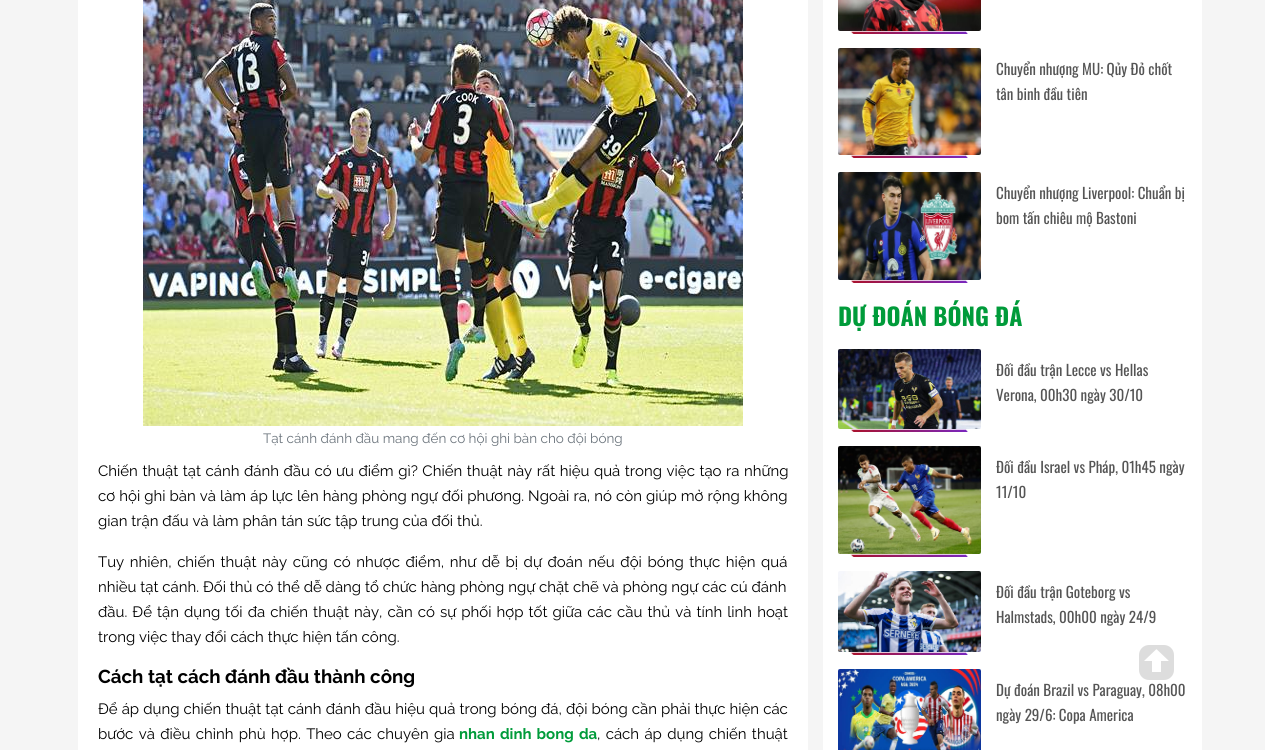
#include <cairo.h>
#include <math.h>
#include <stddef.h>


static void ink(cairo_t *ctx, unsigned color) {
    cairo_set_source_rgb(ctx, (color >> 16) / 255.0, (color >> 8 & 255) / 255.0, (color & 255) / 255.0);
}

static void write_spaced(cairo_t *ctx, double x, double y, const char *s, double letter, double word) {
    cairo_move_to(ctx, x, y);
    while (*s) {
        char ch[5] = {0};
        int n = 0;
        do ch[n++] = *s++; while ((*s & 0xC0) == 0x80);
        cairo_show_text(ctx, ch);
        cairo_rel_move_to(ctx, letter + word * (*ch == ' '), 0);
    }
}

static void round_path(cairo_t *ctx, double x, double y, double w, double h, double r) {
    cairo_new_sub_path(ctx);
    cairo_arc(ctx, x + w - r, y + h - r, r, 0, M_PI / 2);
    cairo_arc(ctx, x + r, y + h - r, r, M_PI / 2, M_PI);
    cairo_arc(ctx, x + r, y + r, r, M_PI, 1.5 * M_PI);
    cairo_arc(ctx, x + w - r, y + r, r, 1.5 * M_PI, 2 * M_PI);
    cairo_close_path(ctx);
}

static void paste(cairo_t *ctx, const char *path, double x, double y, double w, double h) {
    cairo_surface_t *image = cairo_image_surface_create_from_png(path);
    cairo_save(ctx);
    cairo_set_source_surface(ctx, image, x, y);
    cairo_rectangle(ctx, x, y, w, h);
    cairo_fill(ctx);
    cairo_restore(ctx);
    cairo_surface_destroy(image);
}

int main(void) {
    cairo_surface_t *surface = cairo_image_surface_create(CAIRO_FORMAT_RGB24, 1265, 750);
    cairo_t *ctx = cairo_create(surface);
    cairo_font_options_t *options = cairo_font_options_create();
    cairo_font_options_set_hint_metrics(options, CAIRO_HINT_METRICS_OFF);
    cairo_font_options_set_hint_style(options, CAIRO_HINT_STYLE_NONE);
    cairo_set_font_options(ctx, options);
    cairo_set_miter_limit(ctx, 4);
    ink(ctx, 0xF5F5F5);
    cairo_paint(ctx);
    ink(ctx, 0xFFFFFF);
    cairo_rectangle(ctx, 78, 0, 730, 750);
    cairo_fill(ctx);
    paste(ctx, "media/1.png", 143, 0, 600, 426);
    cairo_select_font_face(ctx, "Raleway", CAIRO_FONT_SLANT_NORMAL, CAIRO_FONT_WEIGHT_NORMAL);
    cairo_set_font_size(ctx, 13.5);
    ink(ctx, 0x6C757D);
    cairo_move_to(ctx, 263, 443);
    cairo_show_text(ctx, "Tạt cánh đánh đầu mang đến cơ hội ghi bàn cho đội bóng");
    cairo_set_font_size(ctx, 15);
    ink(ctx, 0x000000);
    write_spaced(ctx, 98, 476, "Chiến thuật tạt cánh đánh đầu có ưu điểm gì? Chiến thuật này rất hiệu quả trong việc tạo ra những", 0, 0.7);
    write_spaced(ctx, 98, 501, "cơ hội ghi bàn và làm áp lực lên hàng phòng ngự đối phương. Ngoài ra, nó còn giúp mở rộng không", 0, 0.25);
    cairo_move_to(ctx, 98, 526);
    cairo_show_text(ctx, "gian trận đấu và làm phân tán sức tập trung của đối thủ.");
    write_spaced(ctx, 98, 567, "Tuy nhiên, chiến thuật này cũng có nhược điểm, như dễ bị dự đoán nếu đội bóng thực hiện quá", 0, 1.8);
    cairo_move_to(ctx, 98, 592);
    cairo_show_text(ctx, "nhiều tạt cánh. Đối thủ có thể dễ dàng tổ chức hàng phòng ngự chặt chẽ và phòng ngự các cú đánh");
    write_spaced(ctx, 98, 617, "đầu. Để tận dụng tối đa chiến thuật này, cần có sự phối hợp tốt giữa các cầu thủ và tính linh hoạt", 0, 1.25);
    cairo_move_to(ctx, 98, 642);
    cairo_show_text(ctx, "trong việc thay đổi cách thực hiện tấn công.");
    cairo_select_font_face(ctx, "Raleway", CAIRO_FONT_SLANT_NORMAL, CAIRO_FONT_WEIGHT_BOLD);
    cairo_set_font_size(ctx, 18.7);
    cairo_move_to(ctx, 98, 683);
    cairo_show_text(ctx, "Cách tạt cách đánh đầu thành công");
    cairo_select_font_face(ctx, "Raleway", CAIRO_FONT_SLANT_NORMAL, CAIRO_FONT_WEIGHT_NORMAL);
    cairo_set_font_size(ctx, 15);
    write_spaced(ctx, 98, 714, "Để áp dụng chiến thuật tạt cánh đánh đầu hiệu quả trong bóng đá, đội bóng cần phải thực hiện các", 0, 0.25);
    write_spaced(ctx, 98, 739, "bước và điều chỉnh phù hợp. Theo các chuyên gia", 0, 1.5);
    cairo_select_font_face(ctx, "Raleway", CAIRO_FONT_SLANT_NORMAL, CAIRO_FONT_WEIGHT_BOLD);
    ink(ctx, 0x009B3A);
    write_spaced(ctx, 459, 739, "nhan dinh bong da", 0, 1.5);
    cairo_select_font_face(ctx, "Raleway", CAIRO_FONT_SLANT_NORMAL, CAIRO_FONT_WEIGHT_NORMAL);
    ink(ctx, 0x000000);
    write_spaced(ctx, 597, 739, ", cách áp dụng chiến thuật", 0, 1.5);
    ink(ctx, 0xFFFFFF);
    cairo_rectangle(ctx, 823, 0, 379, 750);
    cairo_fill(ctx);
    paste(ctx, "media/2.png", 838, 0, 143, 31);
    paste(ctx, "media/3.png", 850, 31, 118, 3);
    paste(ctx, "media/4.png", 838, 48, 143, 107);
    paste(ctx, "media/3.png", 850, 155, 118, 3);
    cairo_select_font_face(ctx, "Oswald", CAIRO_FONT_SLANT_NORMAL, CAIRO_FONT_WEIGHT_NORMAL);
    ink(ctx, 0x555555);
    cairo_move_to(ctx, 996, 75);
    cairo_show_text(ctx, "Chuyển nhượng MU: Qủy Đỏ chốt");
    cairo_move_to(ctx, 996, 100);
    cairo_show_text(ctx, "tân binh đầu tiên");
    paste(ctx, "media/5.png", 838, 172, 143, 108);
    paste(ctx, "media/3.png", 850, 280, 118, 3);
    cairo_move_to(ctx, 996, 199);
    cairo_show_text(ctx, "Chuyển nhượng Liverpool: Chuẩn bị");
    cairo_move_to(ctx, 996, 224);
    cairo_show_text(ctx, "bom tấn chiêu mộ Bastoni");
    cairo_select_font_face(ctx, "Oswald", CAIRO_FONT_SLANT_NORMAL, CAIRO_FONT_WEIGHT_BOLD);
    cairo_set_font_size(ctx, 24);
    ink(ctx, 0x009B3A);
    cairo_move_to(ctx, 838, 326);
    cairo_show_text(ctx, "DỰ ĐOÁN BÓNG ĐÁ");
    paste(ctx, "media/6.png", 838, 349, 143, 80);
    paste(ctx, "media/3.png", 850, 429, 118, 3);
    cairo_select_font_face(ctx, "Oswald", CAIRO_FONT_SLANT_NORMAL, CAIRO_FONT_WEIGHT_NORMAL);
    cairo_set_font_size(ctx, 15);
    ink(ctx, 0x555555);
    cairo_move_to(ctx, 996, 376);
    cairo_show_text(ctx, "Đối đầu trận Lecce vs Hellas");
    cairo_move_to(ctx, 996, 401);
    cairo_show_text(ctx, "Verona, 00h30 ngày 30/10");
    paste(ctx, "media/7.png", 838, 446, 143, 108);
    paste(ctx, "media/3.png", 850, 554, 118, 3);
    cairo_move_to(ctx, 996, 473);
    cairo_show_text(ctx, "Đối đầu Israel vs Pháp, 01h45 ngày");
    cairo_move_to(ctx, 996, 498);
    cairo_show_text(ctx, "11/10");
    paste(ctx, "media/8.png", 838, 571, 143, 81);
    paste(ctx, "media/3.png", 850, 652, 118, 3);
    cairo_move_to(ctx, 996, 598);
    cairo_show_text(ctx, "Đối đầu trận Goteborg vs");
    cairo_move_to(ctx, 996, 623);
    cairo_show_text(ctx, "Halmstads, 00h00 ngày 24/9");
    paste(ctx, "media/9.png", 838, 669, 143, 81);
    cairo_move_to(ctx, 996, 696);
    cairo_show_text(ctx, "Dự đoán Brazil vs Paraguay, 08h00");
    cairo_move_to(ctx, 996, 721);
    cairo_show_text(ctx, "ngày 29/6: Copa America");
    ink(ctx, 0xDDDDDD);
    round_path(ctx, 1139, 645, 35, 35, 10);
    cairo_fill(ctx);
    paste(ctx, "media/10.png", 1144, 649, 25, 23);
    cairo_surface_write_to_png(surface, "image.png");
    cairo_font_options_destroy(options);
    cairo_destroy(ctx);
    cairo_surface_destroy(surface);
    return 0;
}
